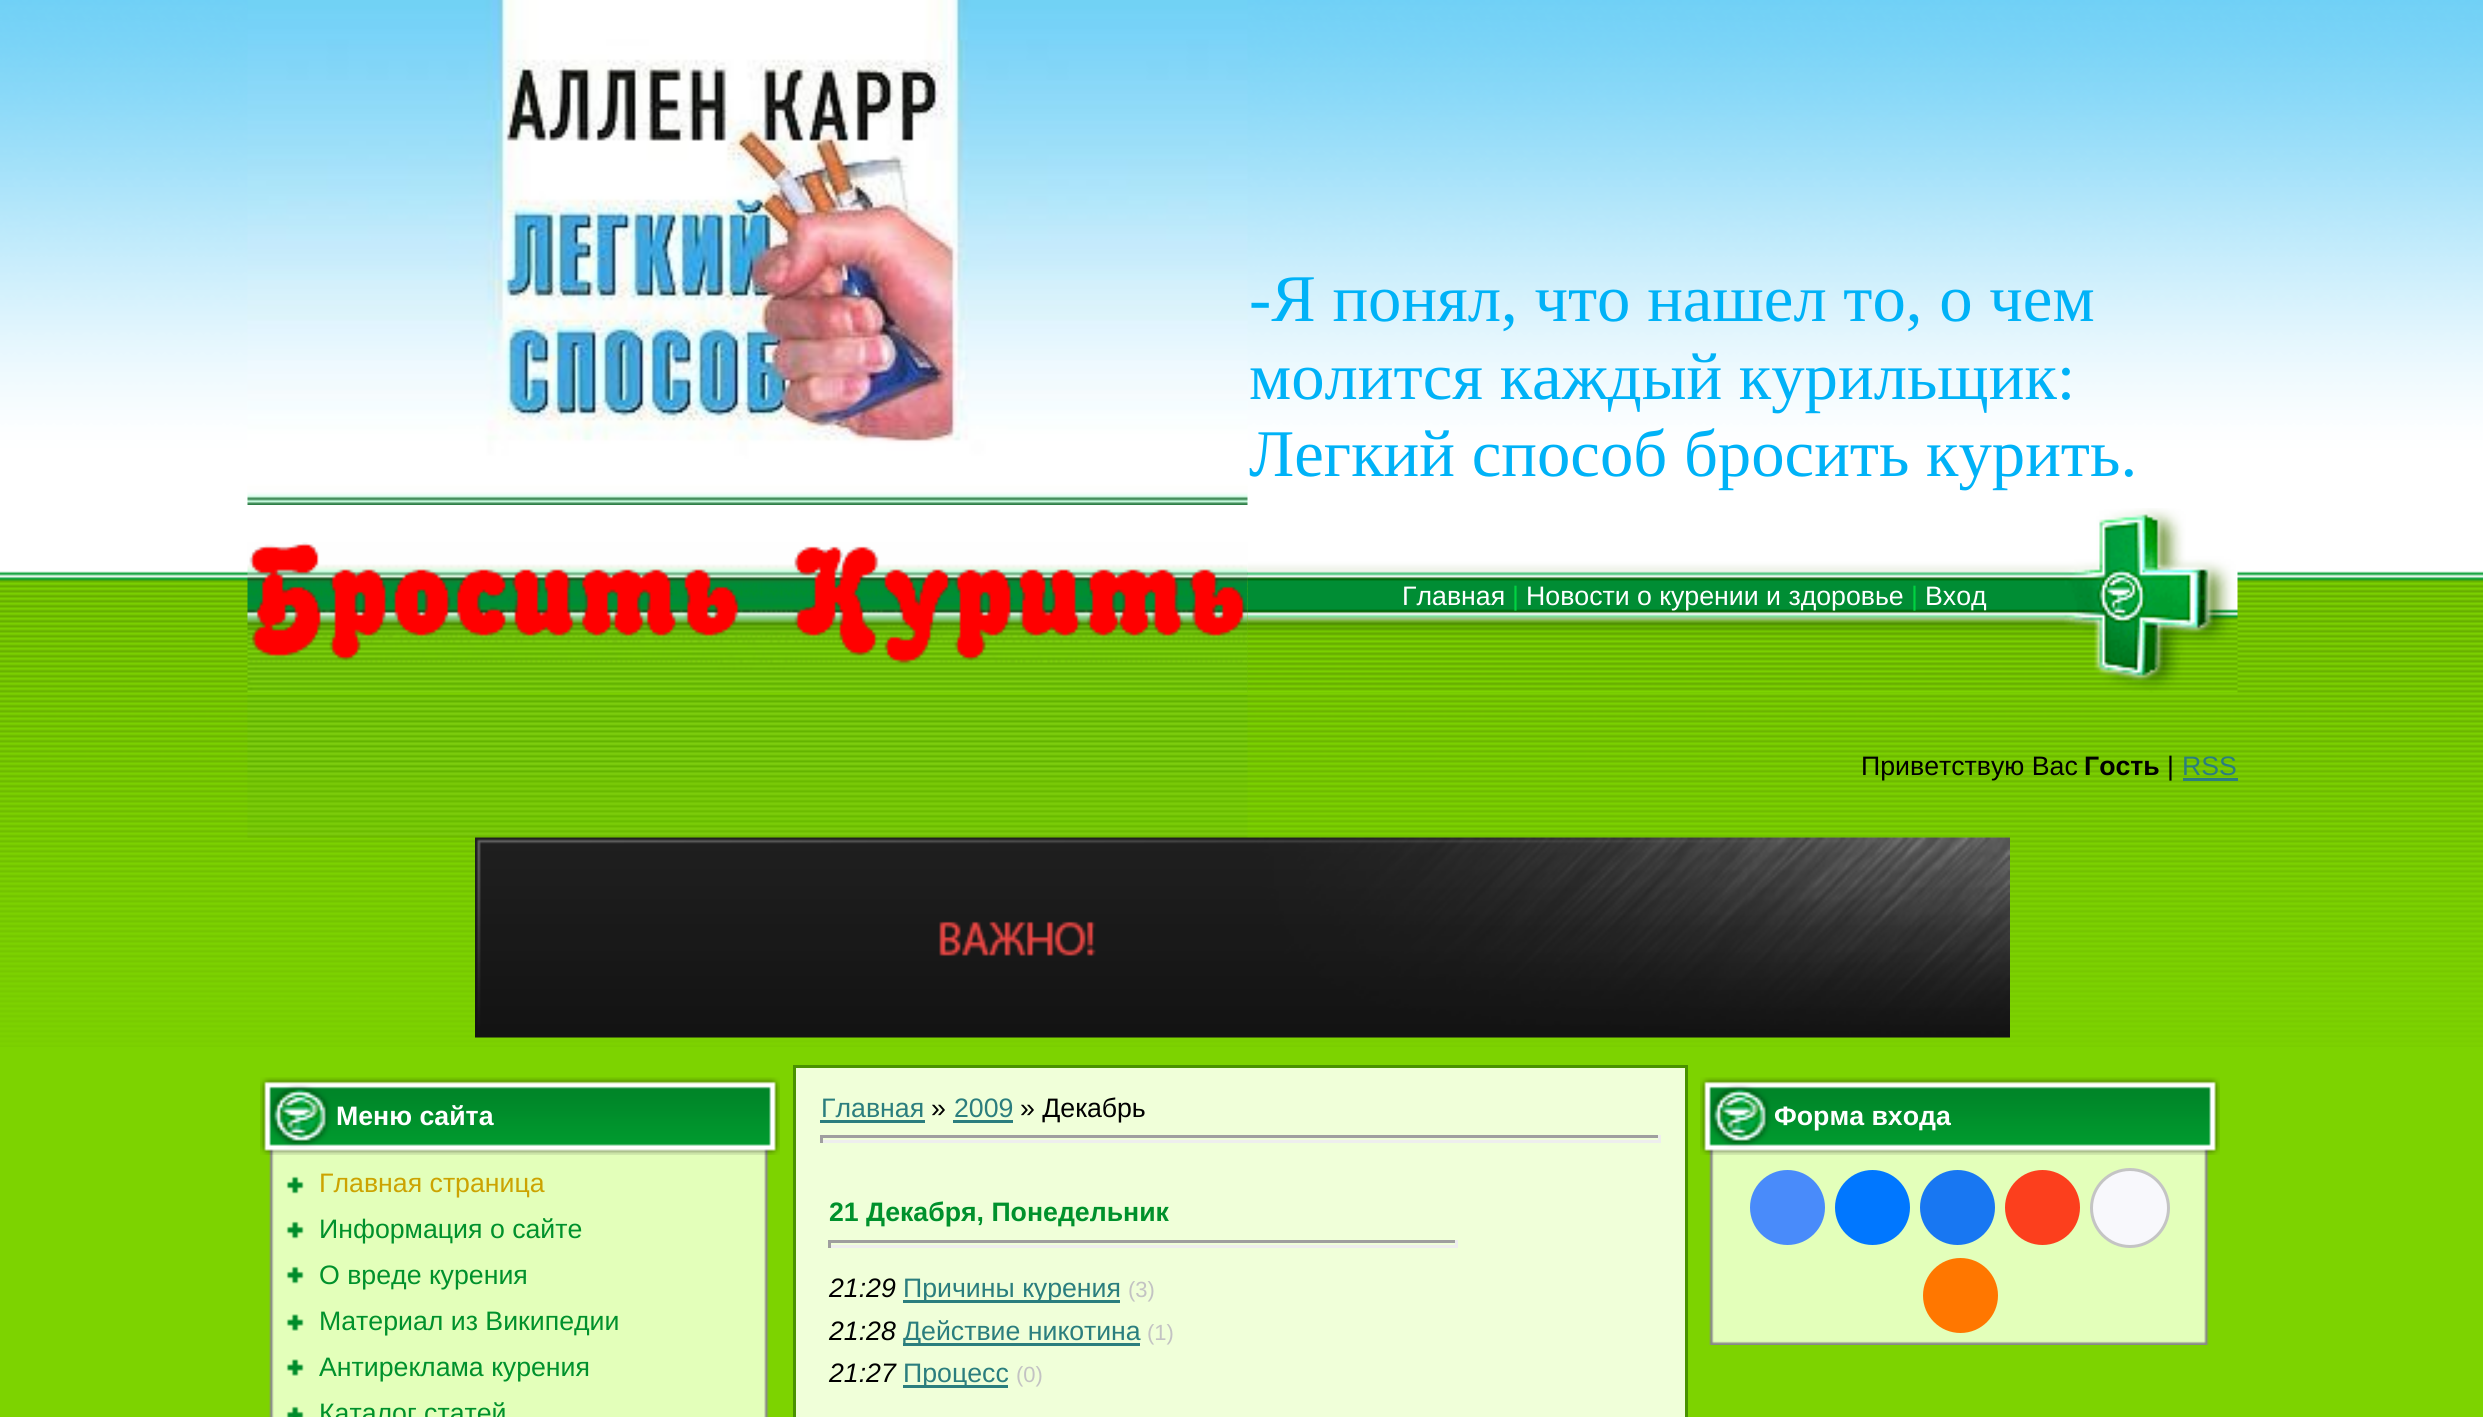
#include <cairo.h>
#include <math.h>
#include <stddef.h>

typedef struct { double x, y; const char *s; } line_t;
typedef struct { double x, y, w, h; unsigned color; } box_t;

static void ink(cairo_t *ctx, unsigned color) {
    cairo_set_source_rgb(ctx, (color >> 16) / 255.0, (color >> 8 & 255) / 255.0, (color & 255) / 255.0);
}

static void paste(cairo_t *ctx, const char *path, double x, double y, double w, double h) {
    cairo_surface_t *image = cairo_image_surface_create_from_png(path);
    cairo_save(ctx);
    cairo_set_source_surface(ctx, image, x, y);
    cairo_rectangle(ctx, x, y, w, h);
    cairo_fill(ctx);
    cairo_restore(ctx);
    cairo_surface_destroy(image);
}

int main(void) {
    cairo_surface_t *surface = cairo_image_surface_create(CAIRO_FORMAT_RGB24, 2483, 1417);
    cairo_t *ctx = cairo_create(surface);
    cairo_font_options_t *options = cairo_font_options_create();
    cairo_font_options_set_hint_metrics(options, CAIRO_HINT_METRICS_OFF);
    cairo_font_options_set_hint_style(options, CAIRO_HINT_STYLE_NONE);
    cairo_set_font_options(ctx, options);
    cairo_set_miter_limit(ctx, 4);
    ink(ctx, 0x7DD300);
    cairo_paint(ctx);
    paste(ctx, "media/1.png", 0, 0, 2483, 1047);
    paste(ctx, "media/2.png", 247, 0, 1001, 505);
    cairo_select_font_face(ctx, "Liberation Serif", CAIRO_FONT_SLANT_NORMAL, CAIRO_FONT_WEIGHT_NORMAL);
    cairo_set_font_size(ctx, 66.7);
    ink(ctx, 0x00B2F7);
    {
        static const line_t items[] = {
            {1249, 321, "-Я понял, что нашел то, о чем"},
            {1249, 399, "молится каждый курильщик:"},
            {1249, 476, "Легкий способ бросить курить."},
        };
        for (size_t i = 0; i < sizeof items / sizeof *items; i++) {
            cairo_move_to(ctx, items[i].x, items[i].y);
            cairo_show_text(ctx, items[i].s);
        }
    }
    paste(ctx, "media/4.png", 1247, 508, 991, 185);
    paste(ctx, "media/3.png", 247, 542, 1001, 151);
    cairo_select_font_face(ctx, "Liberation Sans", CAIRO_FONT_SLANT_NORMAL, CAIRO_FONT_WEIGHT_NORMAL);
    cairo_set_font_size(ctx, 26.7);
    ink(ctx, 0xFFFFFF);
    cairo_move_to(ctx, 1402, 605);
    cairo_show_text(ctx, "Главная");
    ink(ctx, 0x00D341);
    cairo_move_to(ctx, 1512, 605);
    cairo_show_text(ctx, "|");
    ink(ctx, 0xFFFFFF);
    cairo_move_to(ctx, 1526, 605);
    cairo_show_text(ctx, "Новости о курении и здоровье");
    ink(ctx, 0x00D341);
    cairo_move_to(ctx, 1911, 605);
    cairo_show_text(ctx, "|");
    ink(ctx, 0xFFFFFF);
    cairo_move_to(ctx, 1925, 605);
    cairo_show_text(ctx, "Вход");
    paste(ctx, "media/5.png", 247, 695, 1001, 143);
    ink(ctx, 0x000000);
    cairo_move_to(ctx, 1861, 775);
    cairo_show_text(ctx, "Приветствую Вас");
    cairo_select_font_face(ctx, "Liberation Sans", CAIRO_FONT_SLANT_NORMAL, CAIRO_FONT_WEIGHT_BOLD);
    cairo_move_to(ctx, 2084, 775);
    cairo_show_text(ctx, "Гость");
    cairo_select_font_face(ctx, "Liberation Sans", CAIRO_FONT_SLANT_NORMAL, CAIRO_FONT_WEIGHT_NORMAL);
    cairo_move_to(ctx, 2167, 775);
    cairo_show_text(ctx, "|");
    ink(ctx, 0x2B7E7E);
    cairo_move_to(ctx, 2182, 775);
    cairo_show_text(ctx, "RSS");
    cairo_rectangle(ctx, 2183, 778, 55, 3);
    cairo_fill(ctx);
    paste(ctx, "media/6.png", 475, 837, 1535, 201);
    paste(ctx, "media/7.png", 260, 1077, 520, 78);
    cairo_select_font_face(ctx, "Liberation Sans", CAIRO_FONT_SLANT_NORMAL, CAIRO_FONT_WEIGHT_BOLD);
    ink(ctx, 0xFFFFFF);
    cairo_move_to(ctx, 336, 1125);
    cairo_show_text(ctx, "Меню сайта");
    paste(ctx, "media/8.png", 269, 1155, 500, 262);
    paste(ctx, "media/9.png", 286, 1176, 18, 18);
    cairo_select_font_face(ctx, "Liberation Sans", CAIRO_FONT_SLANT_NORMAL, CAIRO_FONT_WEIGHT_NORMAL);
    ink(ctx, 0xCCA301);
    cairo_move_to(ctx, 319, 1192);
    cairo_show_text(ctx, "Главная страница");
    paste(ctx, "media/10.png", 286, 1221, 18, 18);
    ink(ctx, 0x00912C);
    cairo_move_to(ctx, 319, 1238);
    cairo_show_text(ctx, "Информация о сайте");
    paste(ctx, "media/10.png", 286, 1266, 18, 18);
    cairo_move_to(ctx, 319, 1284);
    cairo_show_text(ctx, "О вреде курения");
    paste(ctx, "media/11.png", 286, 1314, 18, 17);
    cairo_move_to(ctx, 319, 1330);
    cairo_show_text(ctx, "Материал из Википедии");
    paste(ctx, "media/11.png", 286, 1359, 18, 17);
    cairo_move_to(ctx, 319, 1376);
    cairo_show_text(ctx, "Антиреклама курения");
    paste(ctx, "media/12.png", 286, 1406, 18, 11);
    cairo_move_to(ctx, 319, 1422);
    cairo_show_text(ctx, "Каталог статей");
    ink(ctx, 0xF0FFD9);
    cairo_rectangle(ctx, 794.5, 1066.5, 892, 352);
    cairo_fill_preserve(ctx);
    ink(ctx, 0x499200);
    cairo_set_line_width(ctx, 3);
    cairo_stroke(ctx);
    ink(ctx, 0x2B7E7E);
    cairo_move_to(ctx, 821, 1117);
    cairo_show_text(ctx, "Главная");
    cairo_rectangle(ctx, 820, 1120, 105, 3);
    cairo_fill(ctx);
    ink(ctx, 0x000000);
    cairo_move_to(ctx, 931, 1117);
    cairo_show_text(ctx, "»");
    ink(ctx, 0x2B7E7E);
    cairo_move_to(ctx, 954, 1117);
    cairo_show_text(ctx, "2009");
    cairo_rectangle(ctx, 953, 1120, 60, 3);
    cairo_fill(ctx);
    ink(ctx, 0x000000);
    cairo_move_to(ctx, 1020, 1117);
    cairo_show_text(ctx, "» Декабрь");
    {
        static const box_t items[] = {
            {820, 1135, 840, 3, 0x9F9F9F},
            {1658, 1135, 3, 8, 0xEEEEEE},
            {820, 1140, 840, 3, 0xEEEEEE},
            {820, 1135, 3, 8, 0x9F9F9F},
        };
        for (size_t i = 0; i < sizeof items / sizeof *items; i++) {
            ink(ctx, items[i].color);
            cairo_rectangle(ctx, items[i].x, items[i].y, items[i].w, items[i].h);
            cairo_fill(ctx);
        }
    }
    cairo_select_font_face(ctx, "Liberation Sans", CAIRO_FONT_SLANT_NORMAL, CAIRO_FONT_WEIGHT_BOLD);
    ink(ctx, 0x00912C);
    cairo_move_to(ctx, 829, 1221);
    cairo_show_text(ctx, "21 Декабря, Понедельник");
    {
        static const box_t items[] = {
            {828, 1240, 630, 3, 0x9F9F9F},
            {1455, 1240, 3, 8, 0xEEEEEE},
            {828, 1245, 630, 3, 0xEEEEEE},
            {828, 1240, 3, 8, 0x9F9F9F},
        };
        for (size_t i = 0; i < sizeof items / sizeof *items; i++) {
            ink(ctx, items[i].color);
            cairo_rectangle(ctx, items[i].x, items[i].y, items[i].w, items[i].h);
            cairo_fill(ctx);
        }
    }
    cairo_select_font_face(ctx, "Liberation Sans", CAIRO_FONT_SLANT_ITALIC, CAIRO_FONT_WEIGHT_NORMAL);
    ink(ctx, 0x000000);
    cairo_move_to(ctx, 829, 1297);
    cairo_show_text(ctx, "21:29");
    ink(ctx, 0x2B7E7E);
    cairo_rectangle(ctx, 903, 1300, 217, 3);
    cairo_fill(ctx);
    cairo_select_font_face(ctx, "Liberation Sans", CAIRO_FONT_SLANT_NORMAL, CAIRO_FONT_WEIGHT_NORMAL);
    cairo_move_to(ctx, 903, 1297);
    cairo_show_text(ctx, "Причины курения");
    cairo_set_font_size(ctx, 22);
    ink(ctx, 0xC3C3C3);
    cairo_move_to(ctx, 1128, 1297);
    cairo_show_text(ctx, "(3)");
    cairo_select_font_face(ctx, "Liberation Sans", CAIRO_FONT_SLANT_ITALIC, CAIRO_FONT_WEIGHT_NORMAL);
    cairo_set_font_size(ctx, 26.7);
    ink(ctx, 0x000000);
    cairo_move_to(ctx, 829, 1340);
    cairo_show_text(ctx, "21:28");
    ink(ctx, 0x2B7E7E);
    cairo_rectangle(ctx, 903, 1343, 237, 3);
    cairo_fill(ctx);
    cairo_select_font_face(ctx, "Liberation Sans", CAIRO_FONT_SLANT_NORMAL, CAIRO_FONT_WEIGHT_NORMAL);
    cairo_move_to(ctx, 903, 1340);
    cairo_show_text(ctx, "Действие никотина");
    cairo_set_font_size(ctx, 22);
    ink(ctx, 0xC3C3C3);
    cairo_move_to(ctx, 1147, 1340);
    cairo_show_text(ctx, "(1)");
    cairo_select_font_face(ctx, "Liberation Sans", CAIRO_FONT_SLANT_ITALIC, CAIRO_FONT_WEIGHT_NORMAL);
    cairo_set_font_size(ctx, 26.7);
    ink(ctx, 0x000000);
    cairo_move_to(ctx, 829, 1382);
    cairo_show_text(ctx, "21:27");
    ink(ctx, 0x2B7E7E);
    cairo_rectangle(ctx, 903, 1385, 105, 3);
    cairo_fill(ctx);
    cairo_select_font_face(ctx, "Liberation Sans", CAIRO_FONT_SLANT_NORMAL, CAIRO_FONT_WEIGHT_NORMAL);
    cairo_move_to(ctx, 903, 1382);
    cairo_show_text(ctx, "Процесс");
    cairo_set_font_size(ctx, 22);
    ink(ctx, 0xC3C3C3);
    cairo_move_to(ctx, 1016, 1382);
    cairo_show_text(ctx, "(0)");
    paste(ctx, "media/13.png", 1700, 1077, 520, 78);
    cairo_select_font_face(ctx, "Liberation Sans", CAIRO_FONT_SLANT_NORMAL, CAIRO_FONT_WEIGHT_BOLD);
    cairo_set_font_size(ctx, 26.7);
    ink(ctx, 0xFFFFFF);
    cairo_move_to(ctx, 1774, 1125);
    cairo_show_text(ctx, "Форма входа");
    paste(ctx, "media/14.png", 1709, 1155, 500, 190);
    ink(ctx, 0x498BFA);
    cairo_arc(ctx, 1787.5, 1207.5, 37.5, 0, 2 * M_PI);
    cairo_fill(ctx);
    ink(ctx, 0x0077FF);
    cairo_arc(ctx, 1872.5, 1207.5, 37.5, 0, 2 * M_PI);
    cairo_fill(ctx);
    ink(ctx, 0x1877F2);
    cairo_arc(ctx, 1957.5, 1207.5, 37.5, 0, 2 * M_PI);
    cairo_fill(ctx);
    ink(ctx, 0xFC3F1D);
    cairo_arc(ctx, 2042.5, 1207.5, 37.5, 0, 2 * M_PI);
    cairo_fill(ctx);
    ink(ctx, 0xF8F8FC);
    cairo_arc(ctx, 2130, 1208, 38.5, 0, 2 * M_PI);
    cairo_fill_preserve(ctx);
    ink(ctx, 0xC4C4C4);
    cairo_stroke(ctx);
    ink(ctx, 0xFF7700);
    cairo_arc(ctx, 1960.5, 1295.5, 37.5, 0, 2 * M_PI);
    cairo_fill(ctx);
    cairo_surface_write_to_png(surface, "image.png");
    cairo_font_options_destroy(options);
    cairo_destroy(ctx);
    cairo_surface_destroy(surface);
    return 0;
}
